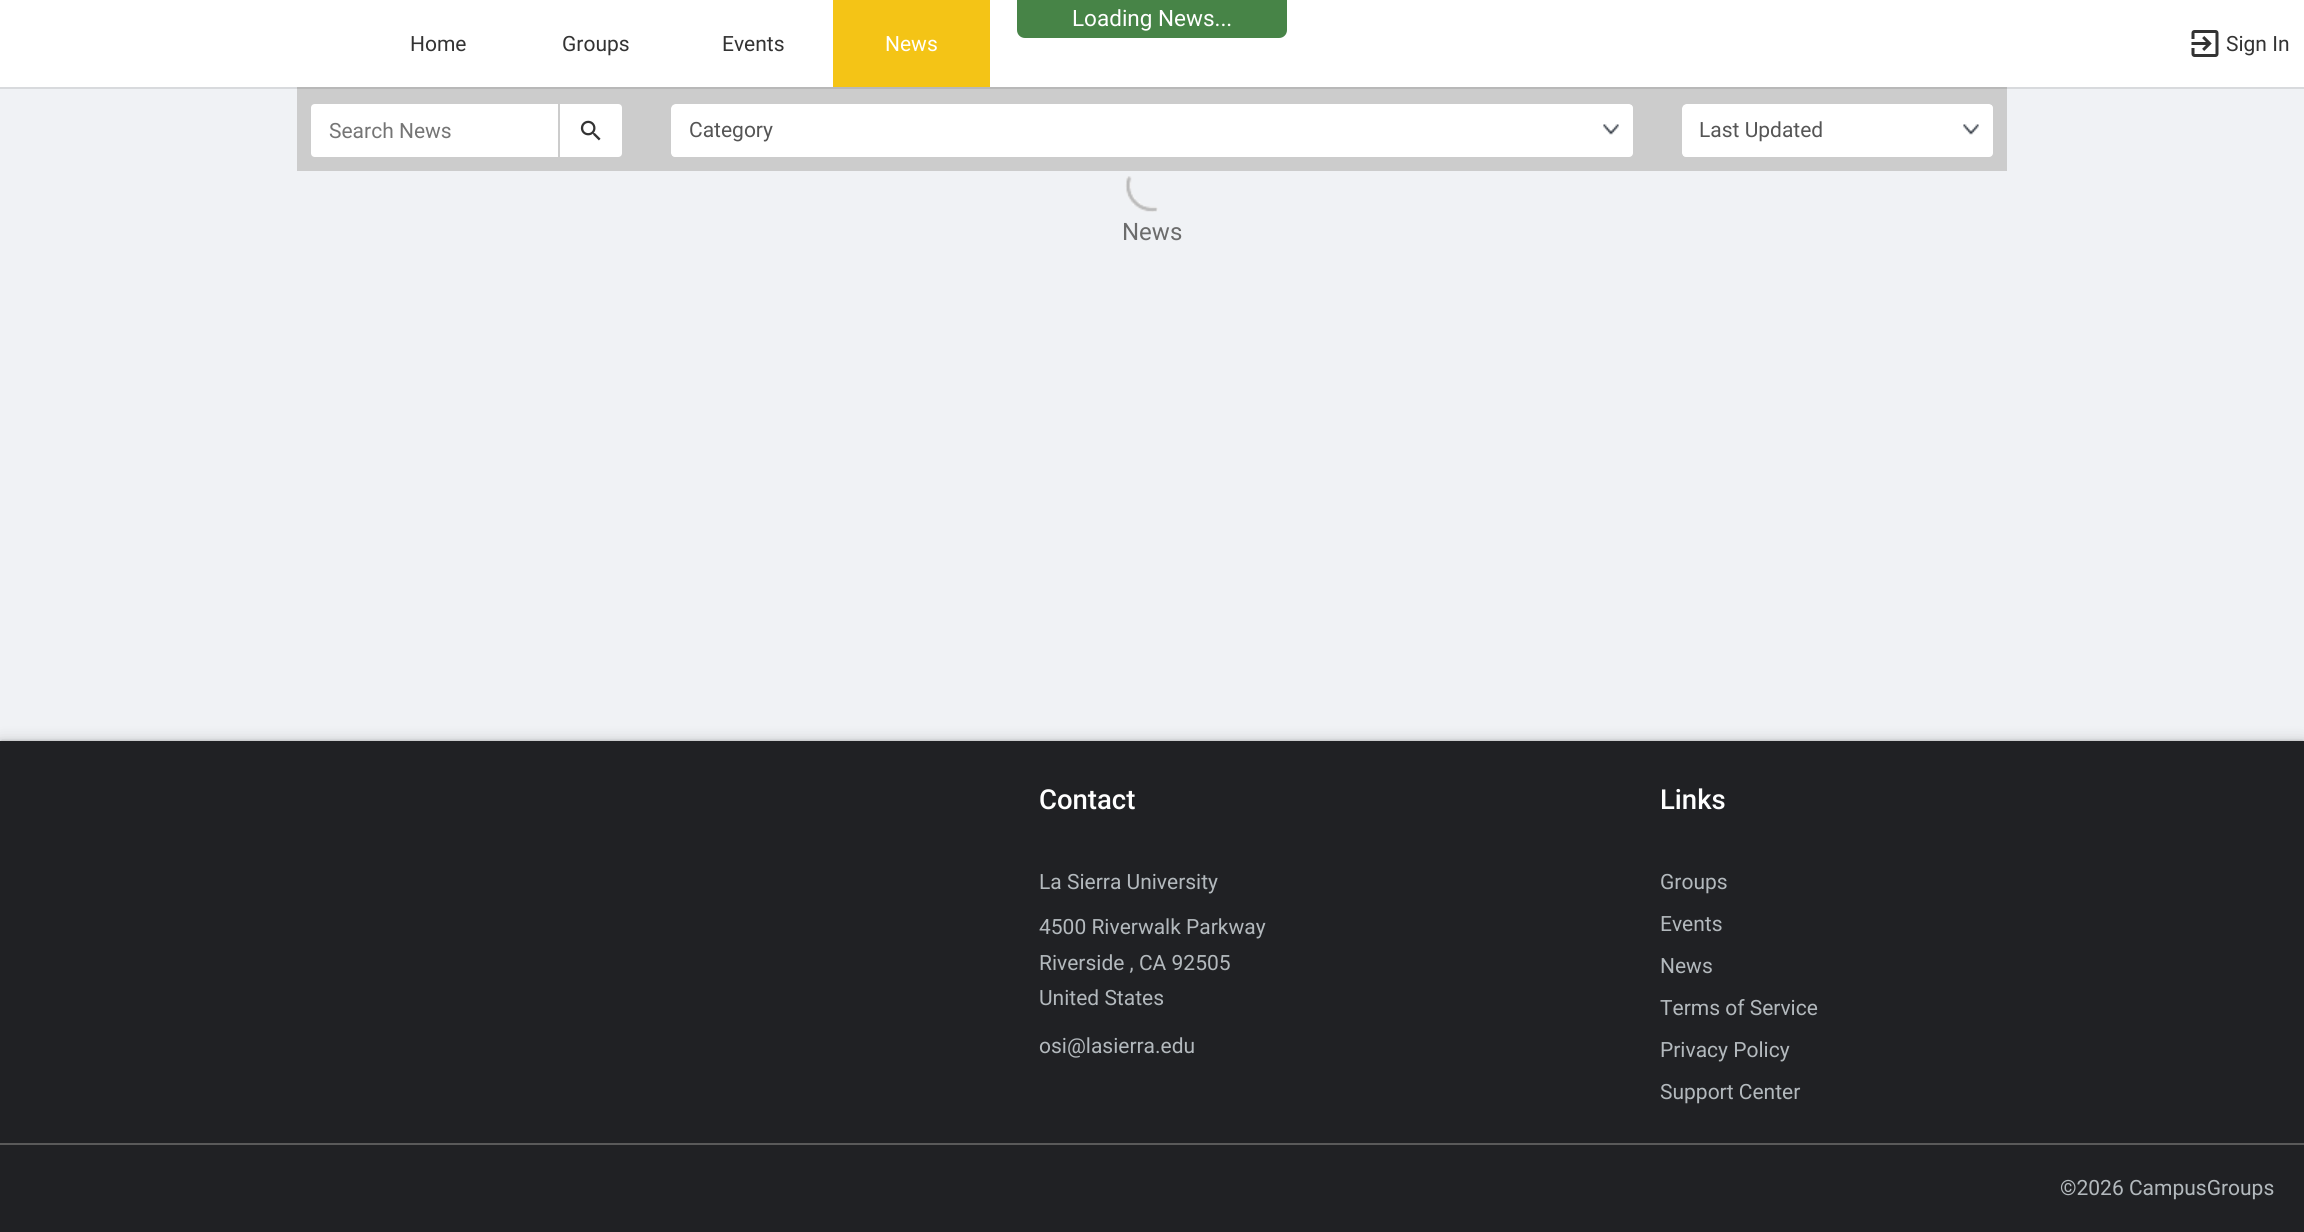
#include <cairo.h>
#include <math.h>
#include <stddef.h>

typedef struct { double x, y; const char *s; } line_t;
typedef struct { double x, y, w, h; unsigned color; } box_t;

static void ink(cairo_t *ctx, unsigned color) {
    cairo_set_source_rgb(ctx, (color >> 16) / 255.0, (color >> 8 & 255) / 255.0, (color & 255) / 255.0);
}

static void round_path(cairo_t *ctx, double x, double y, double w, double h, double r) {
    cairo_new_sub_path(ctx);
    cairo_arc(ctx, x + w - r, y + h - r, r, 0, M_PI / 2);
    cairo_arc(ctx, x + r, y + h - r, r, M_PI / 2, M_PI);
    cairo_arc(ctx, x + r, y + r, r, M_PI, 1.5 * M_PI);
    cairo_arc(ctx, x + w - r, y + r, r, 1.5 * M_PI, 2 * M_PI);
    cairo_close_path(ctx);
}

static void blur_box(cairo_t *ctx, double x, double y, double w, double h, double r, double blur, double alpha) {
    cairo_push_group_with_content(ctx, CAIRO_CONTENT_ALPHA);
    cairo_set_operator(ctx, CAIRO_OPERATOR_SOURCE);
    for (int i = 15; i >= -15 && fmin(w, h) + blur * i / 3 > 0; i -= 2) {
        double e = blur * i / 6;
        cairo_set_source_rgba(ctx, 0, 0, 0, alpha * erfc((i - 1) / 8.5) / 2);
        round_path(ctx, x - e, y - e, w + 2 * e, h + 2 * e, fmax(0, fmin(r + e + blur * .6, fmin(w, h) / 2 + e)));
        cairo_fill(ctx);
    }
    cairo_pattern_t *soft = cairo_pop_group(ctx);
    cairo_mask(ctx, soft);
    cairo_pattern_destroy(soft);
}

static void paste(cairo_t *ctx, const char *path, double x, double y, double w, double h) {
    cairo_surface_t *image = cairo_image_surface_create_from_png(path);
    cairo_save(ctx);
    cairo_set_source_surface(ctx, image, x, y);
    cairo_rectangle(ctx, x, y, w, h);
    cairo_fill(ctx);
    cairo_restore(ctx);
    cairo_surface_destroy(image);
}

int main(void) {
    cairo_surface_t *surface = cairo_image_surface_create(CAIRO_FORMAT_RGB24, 2304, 1232);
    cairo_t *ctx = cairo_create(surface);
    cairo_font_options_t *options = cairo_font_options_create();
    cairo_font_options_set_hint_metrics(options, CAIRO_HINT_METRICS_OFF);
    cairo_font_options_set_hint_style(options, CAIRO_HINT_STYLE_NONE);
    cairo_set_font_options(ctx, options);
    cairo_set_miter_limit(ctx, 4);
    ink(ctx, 0xF0F2F5);
    cairo_paint(ctx);
    {
        static const box_t items[] = {
            {0, 87, 297, 2, 0xD8DADD},
            {2007, 87, 297, 2, 0xD8DADD},
            {0, 0, 2304, 87, 0xFFFFFF},
        };
        for (size_t i = 0; i < sizeof items / sizeof *items; i++) {
            ink(ctx, items[i].color);
            cairo_rectangle(ctx, items[i].x, items[i].y, items[i].w, items[i].h);
            cairo_fill(ctx);
        }
    }
    ink(ctx, 0x478447);
    cairo_new_path(ctx);
    cairo_move_to(ctx, 1017, 0);
    cairo_line_to(ctx, 1287, 0);
    cairo_line_to(ctx, 1287, 30);
    cairo_curve_to(ctx, 1287, 34.5, 1283.5, 38, 1279, 38);
    cairo_line_to(ctx, 1025, 38);
    cairo_curve_to(ctx, 1020.5, 38, 1017, 34.5, 1017, 30);
    cairo_close_path(ctx);
    cairo_fill(ctx);
    cairo_select_font_face(ctx, "Roboto", CAIRO_FONT_SLANT_NORMAL, CAIRO_FONT_WEIGHT_NORMAL);
    cairo_set_font_size(ctx, 22.5);
    ink(ctx, 0xFFFFFF);
    cairo_move_to(ctx, 1072, 26);
    cairo_show_text(ctx, "Loading News...");
    cairo_set_font_size(ctx, 21);
    ink(ctx, 0x333333);
    {
        static const line_t items[] = {
            {410, 51, "Home"},
            {562, 51, "Groups"},
            {722, 51, "Events"},
        };
        for (size_t i = 0; i < sizeof items / sizeof *items; i++) {
            cairo_move_to(ctx, items[i].x, items[i].y);
            cairo_show_text(ctx, items[i].s);
        }
    }
    ink(ctx, 0xF4C416);
    cairo_rectangle(ctx, 833, 0, 157, 87);
    cairo_fill(ctx);
    ink(ctx, 0xFFFFFF);
    cairo_move_to(ctx, 885, 51);
    cairo_show_text(ctx, "News");
    paste(ctx, "media/1.png", 2191, 30, 28, 27);
    ink(ctx, 0x333333);
    cairo_move_to(ctx, 2226, 51);
    cairo_show_text(ctx, "Sign In");
    ink(ctx, 0xCCCCCC);
    cairo_rectangle(ctx, 297, 89, 1710, 82);
    cairo_fill(ctx);
    ink(ctx, 0xB8B8B8);
    cairo_rectangle(ctx, 297, 87, 1710, 2);
    cairo_fill(ctx);
    ink(ctx, 0xFFFFFF);
    cairo_new_path(ctx);
    cairo_move_to(ctx, 315, 103);
    cairo_line_to(ctx, 559, 103);
    cairo_line_to(ctx, 559, 158);
    cairo_line_to(ctx, 315, 158);
    cairo_curve_to(ctx, 312, 158, 310, 156, 310, 153);
    cairo_line_to(ctx, 310, 108);
    cairo_curve_to(ctx, 310, 105, 312, 103, 315, 103);
    cairo_close_path(ctx);
    cairo_fill_preserve(ctx);
    ink(ctx, 0xCCCCCC);
    cairo_stroke(ctx);
    ink(ctx, 0x757575);
    cairo_move_to(ctx, 329, 138);
    cairo_show_text(ctx, "Search News");
    ink(ctx, 0xFFFFFF);
    cairo_new_path(ctx);
    cairo_move_to(ctx, 559, 103);
    cairo_line_to(ctx, 618, 103);
    cairo_curve_to(ctx, 621, 103, 623, 105, 623, 108);
    cairo_line_to(ctx, 623, 153);
    cairo_curve_to(ctx, 623, 156, 621, 158, 618, 158);
    cairo_line_to(ctx, 559, 158);
    cairo_close_path(ctx);
    cairo_fill_preserve(ctx);
    ink(ctx, 0xCCCCCC);
    cairo_stroke(ctx);
    paste(ctx, "media/2.png", 580, 120, 21, 21);
    ink(ctx, 0xFFFFFF);
    round_path(ctx, 671, 104, 963, 54, 5);
    cairo_fill(ctx);
    paste(ctx, "media/3.png", 1603, 124, 16, 11);
    round_path(ctx, 670, 103, 964, 55, 5);
    ink(ctx, 0xCCCCCC);
    cairo_stroke(ctx);
    ink(ctx, 0x555555);
    cairo_move_to(ctx, 689, 137);
    cairo_show_text(ctx, "Category");
    ink(ctx, 0xFFFFFF);
    round_path(ctx, 1682, 104, 312, 54, 5);
    cairo_fill(ctx);
    paste(ctx, "media/3.png", 1963, 124, 16, 11);
    round_path(ctx, 1681, 103, 313, 55, 5);
    ink(ctx, 0xCCCCCC);
    cairo_stroke(ctx);
    ink(ctx, 0x555555);
    cairo_move_to(ctx, 1699, 137);
    cairo_show_text(ctx, "Last Updated");
    paste(ctx, "media/4.png", 1125, 176, 33, 36);
    cairo_set_font_size(ctx, 24);
    ink(ctx, 0x6C6C6C);
    cairo_move_to(ctx, 1122, 240);
    cairo_show_text(ctx, "News");
    ink(ctx, 0x000000);
    blur_box(ctx, 2, 741, 2301, 489, 0, 1, 0.12);
    blur_box(ctx, 0, 740, 2304, 492, 0, 7.5, 0.14);
    blur_box(ctx, 0, 740, 2304, 492, 0, 2, 0.1);
    ink(ctx, 0x202124);
    cairo_rectangle(ctx, 0, 741, 2304, 491);
    cairo_fill(ctx);
    cairo_select_font_face(ctx, "Roboto Medium", CAIRO_FONT_SLANT_NORMAL, CAIRO_FONT_WEIGHT_NORMAL);
    cairo_set_font_size(ctx, 27.5);
    ink(ctx, 0xFFFFFF);
    cairo_move_to(ctx, 1039, 809);
    cairo_show_text(ctx, "Contact");
    cairo_select_font_face(ctx, "Roboto", CAIRO_FONT_SLANT_NORMAL, CAIRO_FONT_WEIGHT_NORMAL);
    cairo_set_font_size(ctx, 21);
    ink(ctx, 0xB3B9BD);
    {
        static const line_t items[] = {
            {1039, 889, "La Sierra University"},
            {1039, 934, "4500 Riverwalk Parkway"},
            {1039, 970, "Riverside , CA 92505"},
            {1039, 1005, "United States"},
            {1039, 1053, "osi@lasierra.edu"},
        };
        for (size_t i = 0; i < sizeof items / sizeof *items; i++) {
            cairo_move_to(ctx, items[i].x, items[i].y);
            cairo_show_text(ctx, items[i].s);
        }
    }
    cairo_select_font_face(ctx, "Roboto Medium", CAIRO_FONT_SLANT_NORMAL, CAIRO_FONT_WEIGHT_NORMAL);
    cairo_set_font_size(ctx, 27.5);
    ink(ctx, 0xFFFFFF);
    cairo_move_to(ctx, 1660, 809);
    cairo_show_text(ctx, "Links");
    cairo_select_font_face(ctx, "Roboto", CAIRO_FONT_SLANT_NORMAL, CAIRO_FONT_WEIGHT_NORMAL);
    cairo_set_font_size(ctx, 21);
    ink(ctx, 0xB3B9BD);
    {
        static const line_t items[] = {
            {1660, 889, "Groups"},
            {1660, 931, "Events"},
            {1660, 973, "News"},
            {1660, 1015, "Terms of Service"},
            {1660, 1057, "Privacy Policy"},
            {1660, 1099, "Support Center"},
        };
        for (size_t i = 0; i < sizeof items / sizeof *items; i++) {
            cairo_move_to(ctx, items[i].x, items[i].y);
            cairo_show_text(ctx, items[i].s);
        }
    }
    ink(ctx, 0x5A5A5A);
    cairo_rectangle(ctx, 0, 1143, 2304, 2);
    cairo_fill(ctx);
    ink(ctx, 0xB3B9BD);
    cairo_move_to(ctx, 2060, 1195);
    cairo_show_text(ctx, "©2026 CampusGroups");
    cairo_surface_write_to_png(surface, "image.png");
    cairo_font_options_destroy(options);
    cairo_destroy(ctx);
    cairo_surface_destroy(surface);
    return 0;
}
